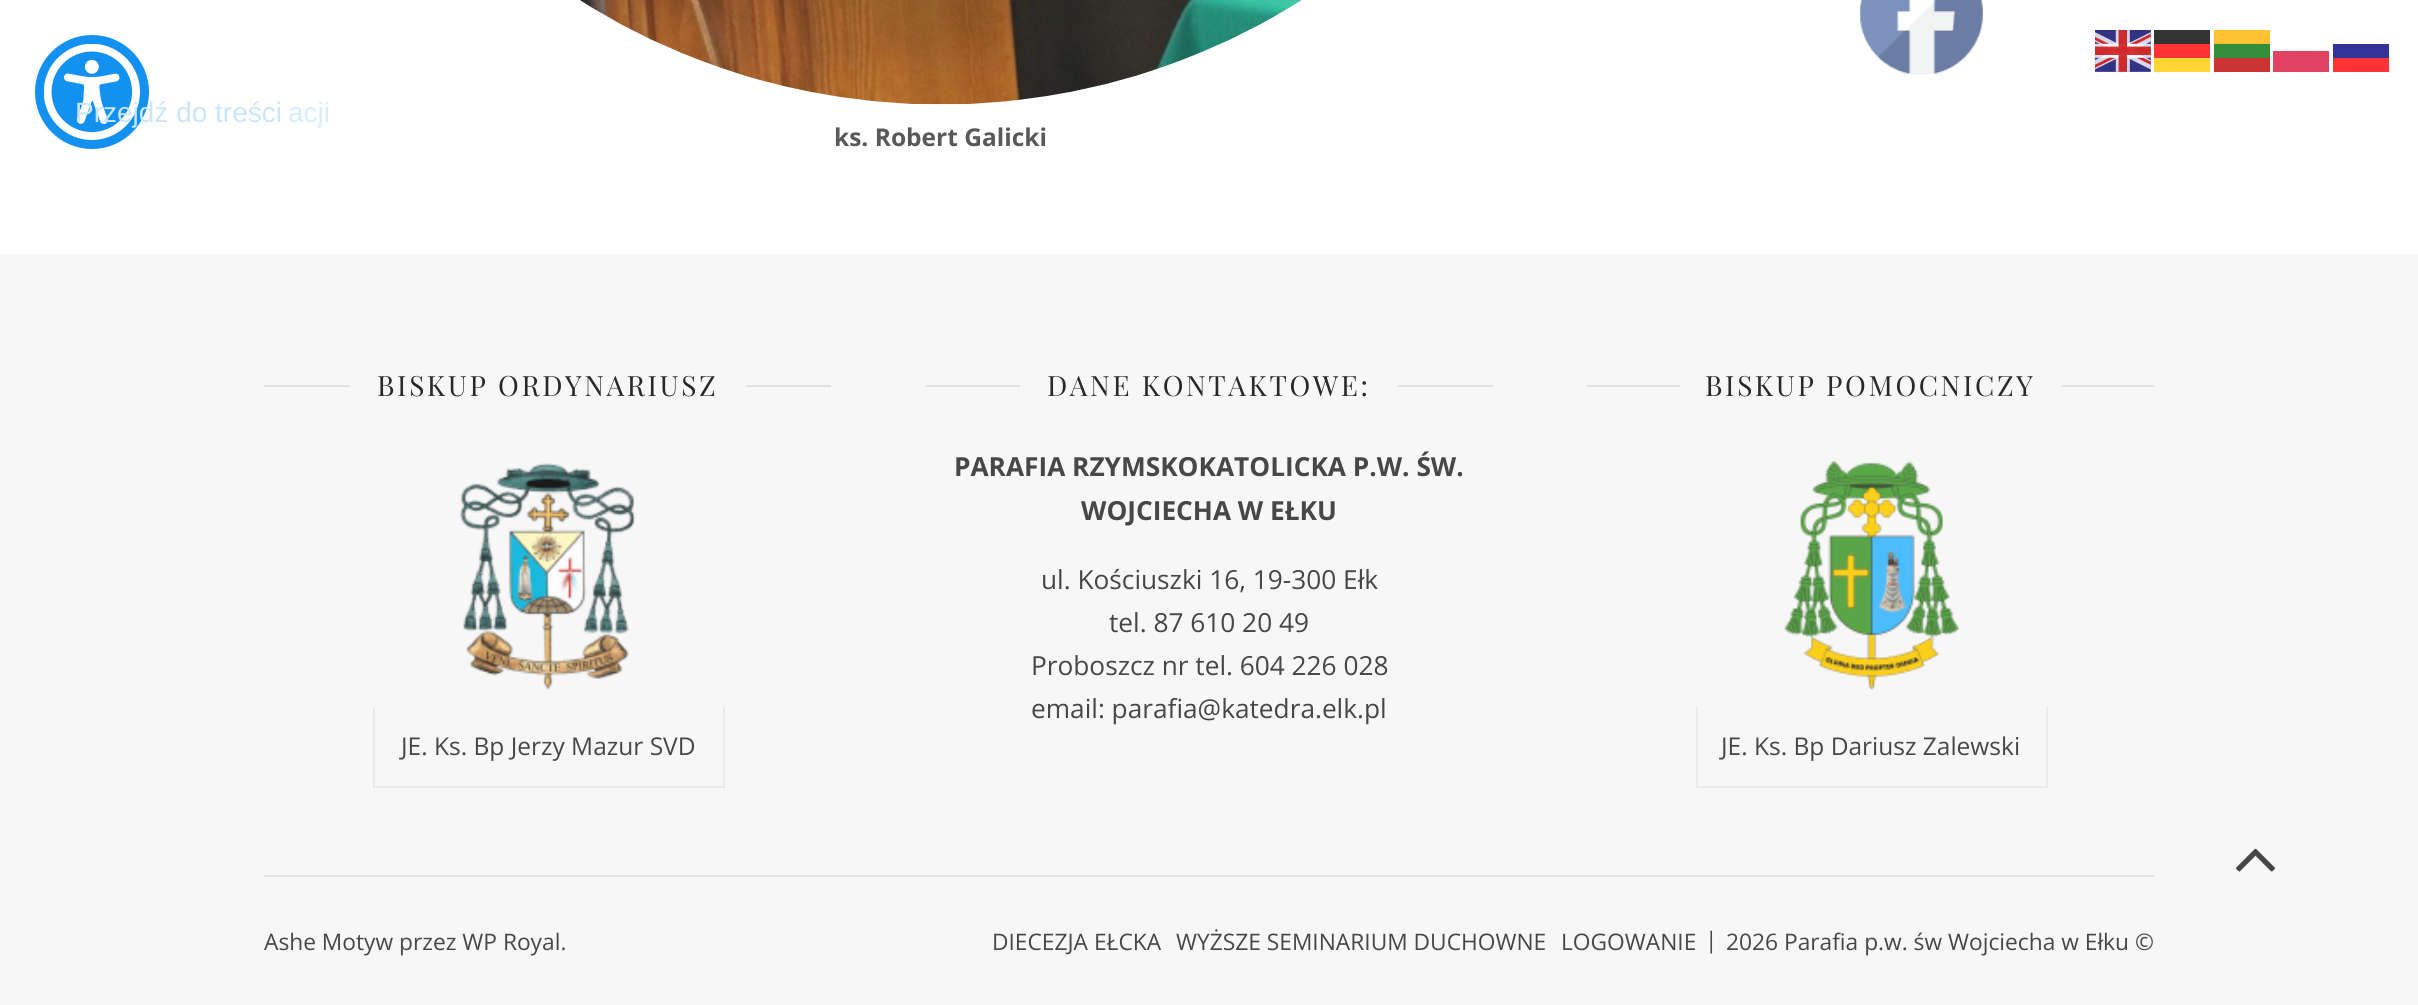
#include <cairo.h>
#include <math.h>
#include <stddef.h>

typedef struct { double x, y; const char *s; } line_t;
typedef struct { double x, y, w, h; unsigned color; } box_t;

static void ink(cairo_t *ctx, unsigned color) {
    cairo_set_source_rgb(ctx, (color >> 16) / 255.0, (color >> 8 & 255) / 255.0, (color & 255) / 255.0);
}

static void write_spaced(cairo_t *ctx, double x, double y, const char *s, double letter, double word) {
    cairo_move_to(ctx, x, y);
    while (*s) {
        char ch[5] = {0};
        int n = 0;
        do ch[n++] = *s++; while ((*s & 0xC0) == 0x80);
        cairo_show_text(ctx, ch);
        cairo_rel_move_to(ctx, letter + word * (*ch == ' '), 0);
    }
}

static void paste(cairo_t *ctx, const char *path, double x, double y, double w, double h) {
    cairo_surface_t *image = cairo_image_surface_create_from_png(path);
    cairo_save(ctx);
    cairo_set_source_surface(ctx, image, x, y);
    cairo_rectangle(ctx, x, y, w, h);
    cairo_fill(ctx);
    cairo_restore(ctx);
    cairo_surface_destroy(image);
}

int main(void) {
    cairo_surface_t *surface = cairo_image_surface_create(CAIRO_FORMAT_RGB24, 2418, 1005);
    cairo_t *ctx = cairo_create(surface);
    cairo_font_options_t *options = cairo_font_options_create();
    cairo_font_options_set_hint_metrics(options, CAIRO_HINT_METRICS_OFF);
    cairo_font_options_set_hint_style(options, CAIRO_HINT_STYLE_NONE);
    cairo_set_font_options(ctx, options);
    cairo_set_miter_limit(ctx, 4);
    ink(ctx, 0xFFFFFF);
    cairo_paint(ctx);
    paste(ctx, "media/1.png", 2095, 30, 56, 42);
    {
        static const box_t items[] = {
            {2154, 30, 56, 14, 0x333333},
            {2214, 30, 56, 14, 0xFFC233},
            {2154, 44, 56, 14, 0xFF3333},
            {2214, 44, 56, 14, 0x338F39},
            {2273, 51, 56, 21, 0xE34363},
            {2333, 44, 56, 14, 0x343498},
            {2154, 58, 56, 14, 0xFFD633},
            {2214, 58, 56, 14, 0xCC3333},
            {2333, 58, 56, 14, 0xFE3434},
        };
        for (size_t i = 0; i < sizeof items / sizeof *items; i++) {
            ink(ctx, items[i].color);
            cairo_rectangle(ctx, items[i].x, items[i].y, items[i].w, items[i].h);
            cairo_fill(ctx);
        }
    }
    ink(ctx, 0x1391F1);
    cairo_arc(ctx, 92, 92, 57, 0, 2 * M_PI);
    cairo_fill(ctx);
    paste(ctx, "media/2.png", 44, 44, 96, 96);
    cairo_select_font_face(ctx, "Liberation Sans", CAIRO_FONT_SLANT_NORMAL, CAIRO_FONT_WEIGHT_NORMAL);
    cairo_set_font_size(ctx, 28);
    ink(ctx, 0xC9E6FC);
    cairo_move_to(ctx, 75, 122);
    cairo_show_text(ctx, "Przejdź do treści");
    ink(ctx, 0xD9EDFD);
    cairo_move_to(ctx, 288, 122);
    cairo_show_text(ctx, "acji");
    paste(ctx, "media/3.png", 1860, 0, 123, 75);
    paste(ctx, "media/4.png", 580, 0, 722, 105);
    cairo_select_font_face(ctx, "Open Sans", CAIRO_FONT_SLANT_NORMAL, CAIRO_FONT_WEIGHT_BOLD);
    cairo_set_font_size(ctx, 24.5);
    ink(ctx, 0x595959);
    cairo_move_to(ctx, 834, 146);
    cairo_show_text(ctx, "ks. Robert Galicki");
    {
        static const box_t items[] = {
            {0, 254, 2418, 751, 0xF7F7F7},
            {264, 875, 1890, 2, 0xE3DFDF},
            {264, 385, 86, 2, 0xE3DFDF},
        };
        for (size_t i = 0; i < sizeof items / sizeof *items; i++) {
            ink(ctx, items[i].color);
            cairo_rectangle(ctx, items[i].x, items[i].y, items[i].w, items[i].h);
            cairo_fill(ctx);
        }
    }
    cairo_select_font_face(ctx, "Playfair Display", CAIRO_FONT_SLANT_NORMAL, CAIRO_FONT_WEIGHT_NORMAL);
    cairo_set_font_size(ctx, 28);
    ink(ctx, 0x292929);
    write_spaced(ctx, 377, 396, "BISKUP ORDYNARIUSZ", 2.6, 0);
    ink(ctx, 0xE3DFDF);
    cairo_rectangle(ctx, 746, 385, 85, 2);
    cairo_fill(ctx);
    paste(ctx, "media/5.png", 459, 463, 177, 227);
    {
        static const box_t items[] = {
            {723, 707, 2, 81, 0xEAEAEA},
            {373, 786, 352, 2, 0xEAEAEA},
            {373, 707, 2, 81, 0xEAEAEA},
        };
        for (size_t i = 0; i < sizeof items / sizeof *items; i++) {
            ink(ctx, items[i].color);
            cairo_rectangle(ctx, items[i].x, items[i].y, items[i].w, items[i].h);
            cairo_fill(ctx);
        }
    }
    cairo_select_font_face(ctx, "Open Sans", CAIRO_FONT_SLANT_NORMAL, CAIRO_FONT_WEIGHT_NORMAL);
    cairo_set_font_size(ctx, 24.5);
    ink(ctx, 0x474747);
    cairo_move_to(ctx, 401, 755);
    cairo_show_text(ctx, "JE. Ks. Bp Jerzy Mazur SVD");
    ink(ctx, 0xE3DFDF);
    cairo_rectangle(ctx, 926, 385, 94, 2);
    cairo_fill(ctx);
    cairo_select_font_face(ctx, "Playfair Display", CAIRO_FONT_SLANT_NORMAL, CAIRO_FONT_WEIGHT_NORMAL);
    cairo_set_font_size(ctx, 28);
    ink(ctx, 0x292929);
    write_spaced(ctx, 1047, 396, "DANE KONTAKTOWE:", 2.6, 0);
    ink(ctx, 0xE3DFDF);
    cairo_rectangle(ctx, 1398, 385, 95, 2);
    cairo_fill(ctx);
    cairo_select_font_face(ctx, "Open Sans", CAIRO_FONT_SLANT_NORMAL, CAIRO_FONT_WEIGHT_BOLD);
    cairo_set_font_size(ctx, 26.25);
    ink(ctx, 0x474747);
    cairo_move_to(ctx, 954, 476);
    cairo_show_text(ctx, "PARAFIA RZYMSKOKATOLICKA P.W. ŚW.");
    cairo_move_to(ctx, 1081, 520);
    cairo_show_text(ctx, "WOJCIECHA W EŁKU");
    cairo_select_font_face(ctx, "Open Sans", CAIRO_FONT_SLANT_NORMAL, CAIRO_FONT_WEIGHT_NORMAL);
    {
        static const line_t items[] = {
            {1041, 589, "ul. Kościuszki 16, 19-300 Ełk"},
            {1109, 632, "tel. 87 610 20 49"},
            {1031, 675, "Proboszcz nr tel. 604 226 028"},
            {1031, 718, "email: parafia@katedra.elk.pl"},
        };
        for (size_t i = 0; i < sizeof items / sizeof *items; i++) {
            cairo_move_to(ctx, items[i].x, items[i].y);
            cairo_show_text(ctx, items[i].s);
        }
    }
    ink(ctx, 0xE3DFDF);
    cairo_rectangle(ctx, 1587, 385, 93, 2);
    cairo_fill(ctx);
    cairo_select_font_face(ctx, "Playfair Display", CAIRO_FONT_SLANT_NORMAL, CAIRO_FONT_WEIGHT_NORMAL);
    cairo_set_font_size(ctx, 28);
    ink(ctx, 0x292929);
    write_spaced(ctx, 1705, 396, "BISKUP POMOCNICZY", 2.6, 0);
    ink(ctx, 0xE3DFDF);
    cairo_rectangle(ctx, 2062, 385, 92, 2);
    cairo_fill(ctx);
    paste(ctx, "media/6.png", 1784, 461, 175, 229);
    {
        static const box_t items[] = {
            {2046, 707, 2, 81, 0xEAEAEA},
            {1696, 786, 352, 2, 0xEAEAEA},
            {1696, 707, 2, 81, 0xEAEAEA},
        };
        for (size_t i = 0; i < sizeof items / sizeof *items; i++) {
            ink(ctx, items[i].color);
            cairo_rectangle(ctx, items[i].x, items[i].y, items[i].w, items[i].h);
            cairo_fill(ctx);
        }
    }
    cairo_select_font_face(ctx, "Open Sans", CAIRO_FONT_SLANT_NORMAL, CAIRO_FONT_WEIGHT_NORMAL);
    cairo_set_font_size(ctx, 24.5);
    ink(ctx, 0x474747);
    cairo_move_to(ctx, 1721, 755);
    cairo_show_text(ctx, "JE. Ks. Bp Dariusz Zalewski");
    cairo_set_font_size(ctx, 22.75);
    {
        static const line_t items[] = {
            {264, 950, "Ashe Motyw przez WP Royal."},
            {992, 950, "DIECEZJA EŁCKA"},
            {1176, 950, "WYŻSZE SEMINARIUM DUCHOWNE"},
            {1561, 950, "LOGOWANIE"},
            {1705, 948, "|"},
            {1726, 950, "2026 Parafia p.w. św Wojciecha w Ełku ©"},
        };
        for (size_t i = 0; i < sizeof items / sizeof *items; i++) {
            cairo_move_to(ctx, items[i].x, items[i].y);
            cairo_show_text(ctx, items[i].s);
        }
    }
    paste(ctx, "media/7.png", 2236, 848, 39, 24);
    cairo_surface_write_to_png(surface, "image.png");
    cairo_font_options_destroy(options);
    cairo_destroy(ctx);
    cairo_surface_destroy(surface);
    return 0;
}
